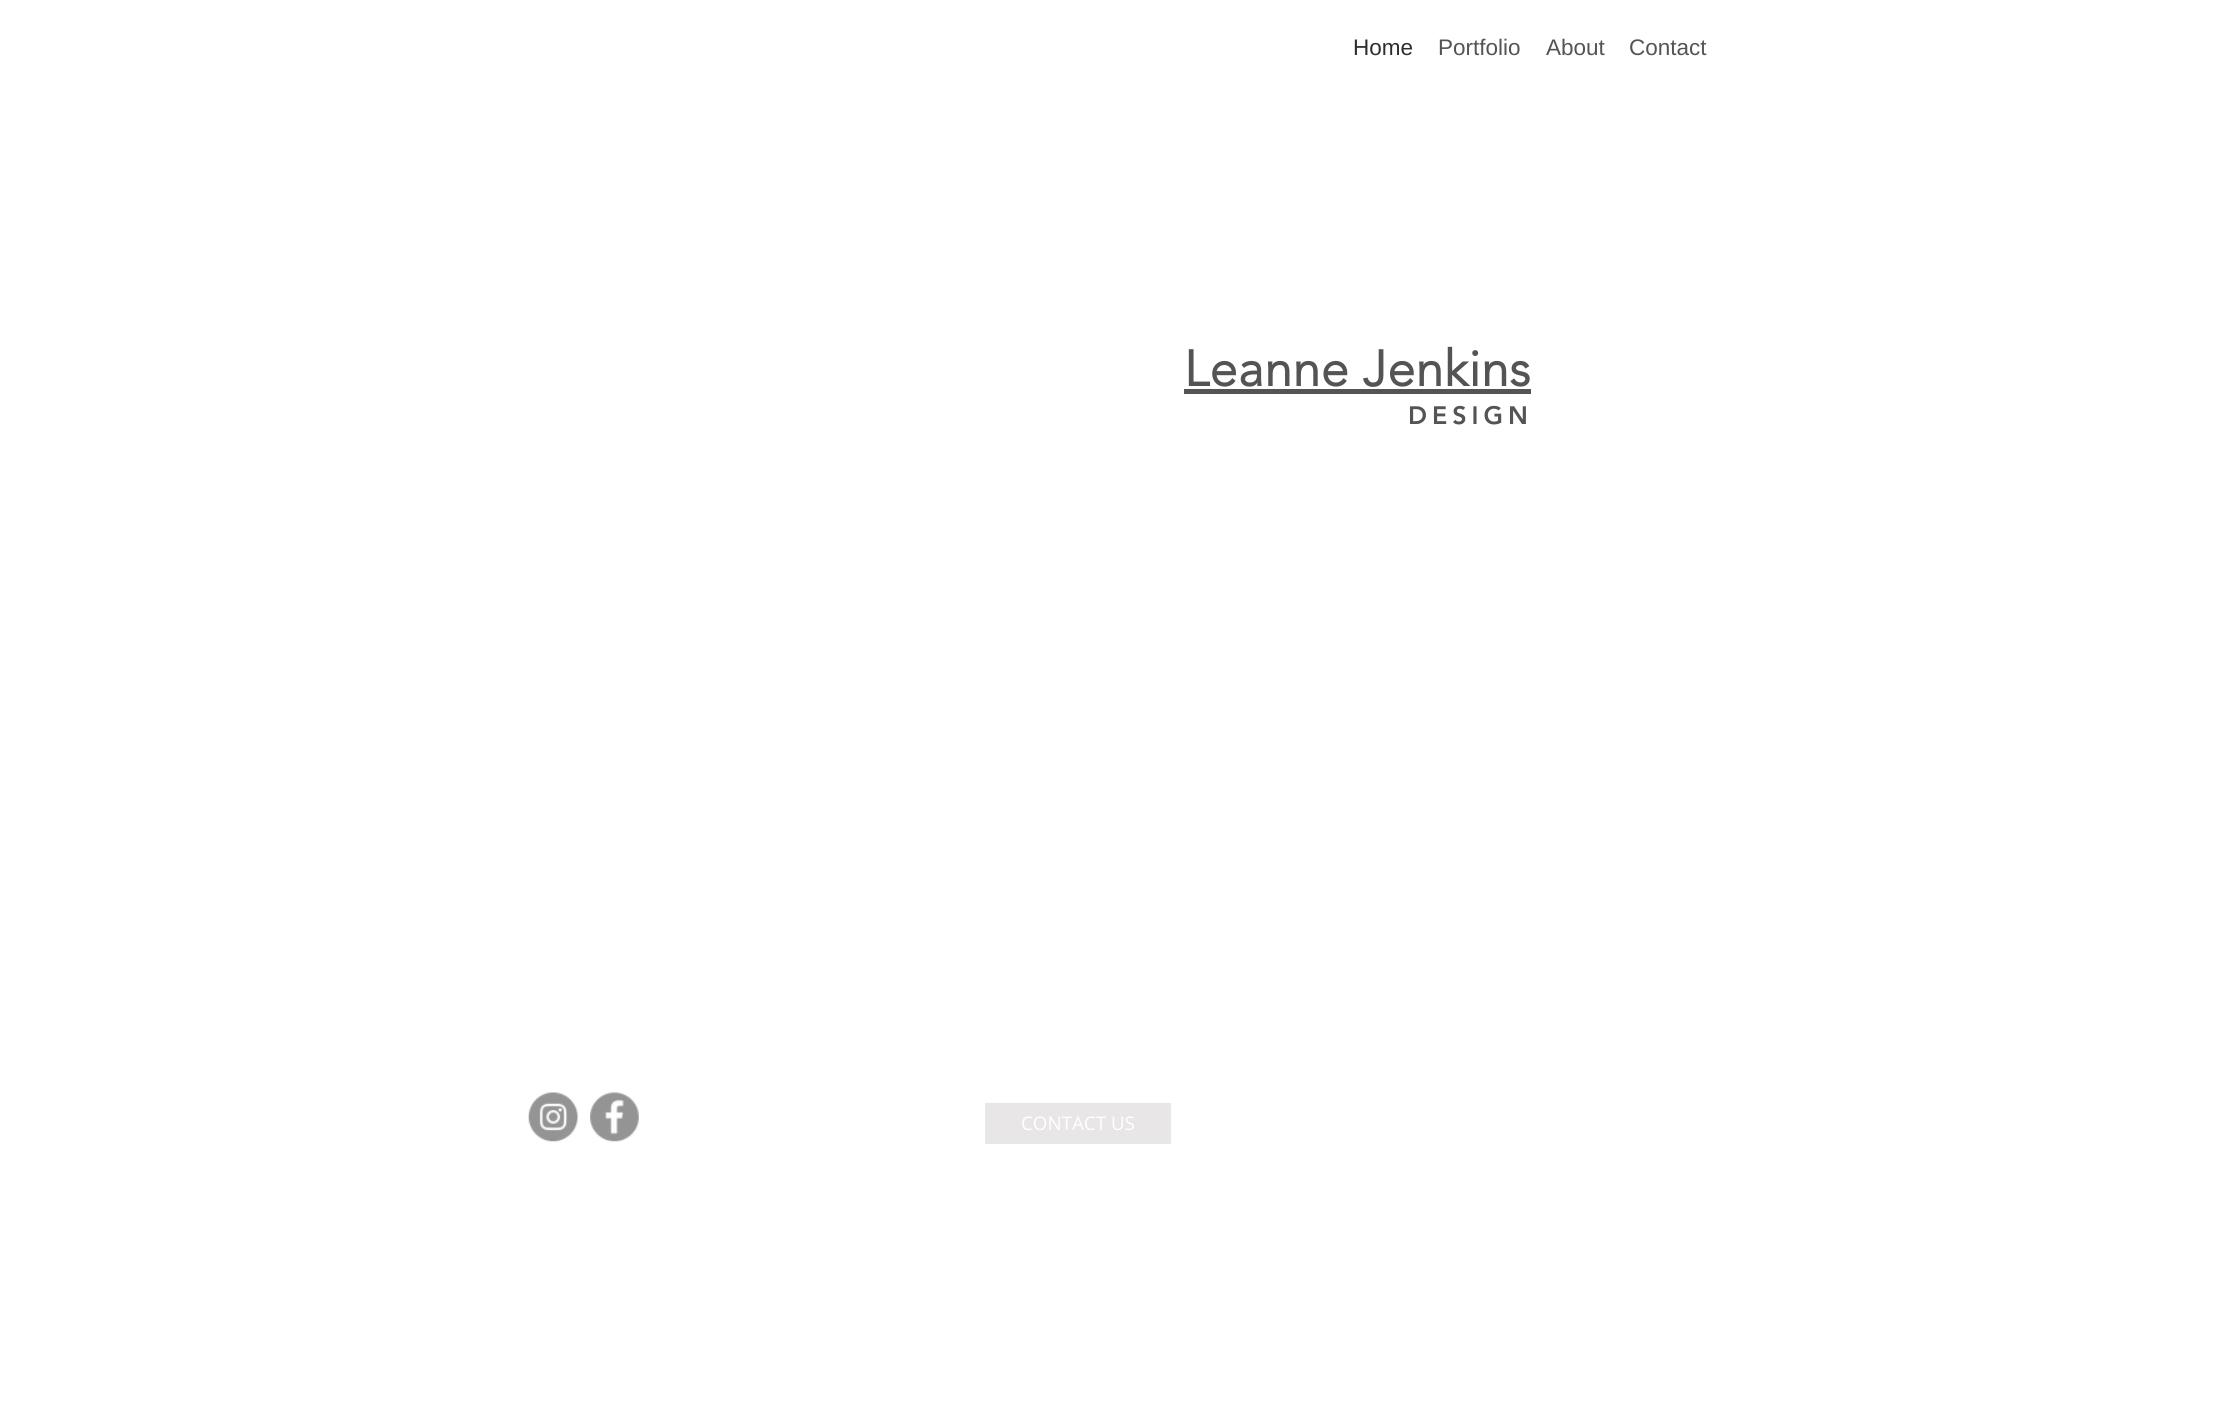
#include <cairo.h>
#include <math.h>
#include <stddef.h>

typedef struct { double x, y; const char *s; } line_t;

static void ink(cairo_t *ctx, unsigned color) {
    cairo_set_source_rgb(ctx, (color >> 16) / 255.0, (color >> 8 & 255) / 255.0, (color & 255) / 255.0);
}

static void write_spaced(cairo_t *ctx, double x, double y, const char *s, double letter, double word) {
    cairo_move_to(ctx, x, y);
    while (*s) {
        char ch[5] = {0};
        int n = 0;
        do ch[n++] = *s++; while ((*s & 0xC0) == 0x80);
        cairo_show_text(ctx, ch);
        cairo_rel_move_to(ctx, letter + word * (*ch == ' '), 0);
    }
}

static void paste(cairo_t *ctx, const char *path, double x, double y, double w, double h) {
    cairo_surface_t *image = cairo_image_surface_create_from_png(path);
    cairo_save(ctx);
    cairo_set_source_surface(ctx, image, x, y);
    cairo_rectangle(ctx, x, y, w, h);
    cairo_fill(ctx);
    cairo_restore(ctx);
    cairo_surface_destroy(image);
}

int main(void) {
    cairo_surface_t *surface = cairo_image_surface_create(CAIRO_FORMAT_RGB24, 2234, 1414);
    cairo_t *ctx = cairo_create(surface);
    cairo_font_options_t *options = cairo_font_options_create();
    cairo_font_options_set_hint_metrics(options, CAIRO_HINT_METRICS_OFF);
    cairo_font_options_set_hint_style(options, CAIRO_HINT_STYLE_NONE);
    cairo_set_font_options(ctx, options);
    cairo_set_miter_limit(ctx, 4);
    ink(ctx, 0xFFFFFF);
    cairo_paint(ctx);
    cairo_select_font_face(ctx, "Liberation Sans", CAIRO_FONT_SLANT_NORMAL, CAIRO_FONT_WEIGHT_NORMAL);
    cairo_set_font_size(ctx, 22.5);
    ink(ctx, 0x2F2E2E);
    cairo_move_to(ctx, 1353, 55);
    cairo_show_text(ctx, "Home");
    ink(ctx, 0x545455);
    {
        static const line_t items[] = {
            {1438, 55, "Portfolio"},
            {1546, 55, "About"},
            {1629, 55, "Contact"},
        };
        for (size_t i = 0; i < sizeof items / sizeof *items; i++) {
            cairo_move_to(ctx, items[i].x, items[i].y);
            cairo_show_text(ctx, items[i].s);
        }
    }
    cairo_select_font_face(ctx, "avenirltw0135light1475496", CAIRO_FONT_SLANT_NORMAL, CAIRO_FONT_WEIGHT_BOLD);
    cairo_set_font_size(ctx, 50);
    write_spaced(ctx, 1184, 386, "Leanne Jenkins", 0.5, 0);
    cairo_rectangle(ctx, 1184, 389, 347, 5);
    cairo_fill(ctx);
    cairo_select_font_face(ctx, "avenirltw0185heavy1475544 Black", CAIRO_FONT_SLANT_NORMAL, CAIRO_FONT_WEIGHT_NORMAL);
    cairo_set_font_size(ctx, 25);
    write_spaced(ctx, 1408, 424, "DESIGN", 5, 0);
    paste(ctx, "media/1.png", 528, 1092, 50, 50);
    paste(ctx, "media/2.png", 590, 1092, 49, 50);
    ink(ctx, 0xE8E6E6);
    cairo_rectangle(ctx, 985, 1103, 186, 41);
    cairo_fill(ctx);
    cairo_select_font_face(ctx, "Open Sans", CAIRO_FONT_SLANT_NORMAL, CAIRO_FONT_WEIGHT_NORMAL);
    cairo_set_font_size(ctx, 18.75);
    ink(ctx, 0xFFFFFF);
    cairo_move_to(ctx, 1021, 1130);
    cairo_show_text(ctx, "CONTACT US");
    cairo_surface_write_to_png(surface, "image.png");
    cairo_font_options_destroy(options);
    cairo_destroy(ctx);
    cairo_surface_destroy(surface);
    return 0;
}
